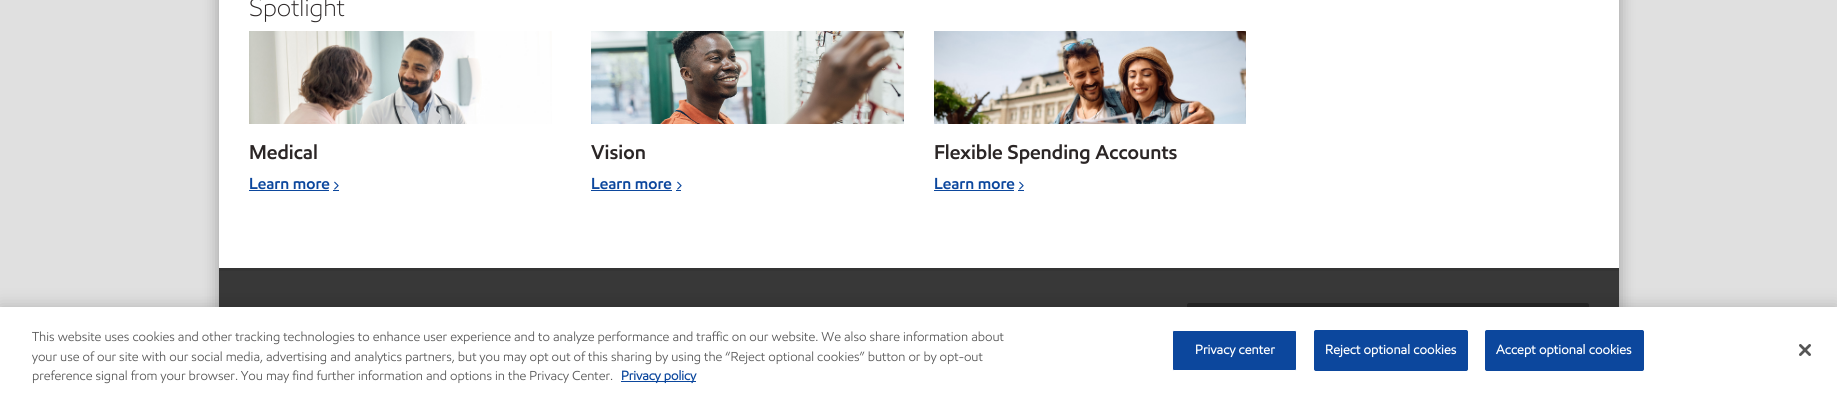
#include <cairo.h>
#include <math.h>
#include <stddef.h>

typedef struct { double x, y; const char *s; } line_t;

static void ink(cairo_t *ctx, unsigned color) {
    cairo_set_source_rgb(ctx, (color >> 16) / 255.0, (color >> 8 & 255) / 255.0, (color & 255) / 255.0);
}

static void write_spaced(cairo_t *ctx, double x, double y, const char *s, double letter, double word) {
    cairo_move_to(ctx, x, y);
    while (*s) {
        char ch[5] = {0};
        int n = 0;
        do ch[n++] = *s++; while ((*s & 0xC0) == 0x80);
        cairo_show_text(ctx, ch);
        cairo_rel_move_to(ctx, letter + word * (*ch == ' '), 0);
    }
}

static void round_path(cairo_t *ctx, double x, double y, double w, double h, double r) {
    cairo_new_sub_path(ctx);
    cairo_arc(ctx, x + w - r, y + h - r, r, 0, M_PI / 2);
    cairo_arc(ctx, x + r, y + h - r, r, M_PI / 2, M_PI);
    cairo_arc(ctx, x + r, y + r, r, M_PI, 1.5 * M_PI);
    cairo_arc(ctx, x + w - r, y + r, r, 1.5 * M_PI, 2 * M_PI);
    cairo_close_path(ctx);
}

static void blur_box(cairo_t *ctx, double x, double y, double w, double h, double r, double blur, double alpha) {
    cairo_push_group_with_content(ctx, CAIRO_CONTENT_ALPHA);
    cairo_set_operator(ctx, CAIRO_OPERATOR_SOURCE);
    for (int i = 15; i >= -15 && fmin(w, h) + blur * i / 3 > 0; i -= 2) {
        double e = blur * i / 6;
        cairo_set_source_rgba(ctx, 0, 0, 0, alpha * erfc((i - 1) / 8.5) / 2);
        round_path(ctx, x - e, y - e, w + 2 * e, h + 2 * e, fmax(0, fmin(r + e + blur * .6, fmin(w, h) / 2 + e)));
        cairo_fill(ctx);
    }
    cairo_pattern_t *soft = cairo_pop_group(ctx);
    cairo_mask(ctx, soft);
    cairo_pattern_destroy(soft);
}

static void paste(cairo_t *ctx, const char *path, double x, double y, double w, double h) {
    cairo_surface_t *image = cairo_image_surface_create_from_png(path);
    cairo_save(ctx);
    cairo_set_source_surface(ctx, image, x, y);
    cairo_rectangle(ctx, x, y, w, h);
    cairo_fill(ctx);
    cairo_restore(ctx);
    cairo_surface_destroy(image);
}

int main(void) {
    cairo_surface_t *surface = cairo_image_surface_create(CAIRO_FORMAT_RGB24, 1837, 396);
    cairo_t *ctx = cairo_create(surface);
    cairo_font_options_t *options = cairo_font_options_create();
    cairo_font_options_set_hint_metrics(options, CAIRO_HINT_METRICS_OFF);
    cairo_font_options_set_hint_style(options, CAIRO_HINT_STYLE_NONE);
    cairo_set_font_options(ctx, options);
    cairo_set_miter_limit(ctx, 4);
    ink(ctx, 0xE0E0E0);
    cairo_paint(ctx);
    ink(ctx, 0x000000);
    blur_box(ctx, 219, -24, 1400, 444, 0, 8, 0.3);
    ink(ctx, 0xFFFFFF);
    cairo_rectangle(ctx, 219, 0, 1400, 268);
    cairo_fill(ctx);
    cairo_select_font_face(ctx, "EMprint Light", CAIRO_FONT_SLANT_NORMAL, CAIRO_FONT_WEIGHT_NORMAL);
    cairo_set_font_size(ctx, 25);
    ink(ctx, 0x2B2626);
    cairo_move_to(ctx, 249, 16);
    cairo_show_text(ctx, "Spotlight");
    paste(ctx, "media/1.png", 249, 31, 303, 93);
    cairo_select_font_face(ctx, "EMprint SemiBold", CAIRO_FONT_SLANT_NORMAL, CAIRO_FONT_WEIGHT_NORMAL);
    cairo_set_font_size(ctx, 20);
    cairo_move_to(ctx, 249, 159);
    cairo_show_text(ctx, "Medical");
    cairo_set_font_size(ctx, 16);
    ink(ctx, 0x0C479D);
    cairo_move_to(ctx, 249, 189);
    cairo_show_text(ctx, "Learn more");
    cairo_rectangle(ctx, 249, 190, 80, 1);
    cairo_fill(ctx);
    cairo_rectangle(ctx, 333, 190, 6, 1);
    cairo_fill(ctx);
    paste(ctx, "media/2.png", 334, 181, 5, 9);
    paste(ctx, "media/3.png", 591, 31, 313, 93);
    cairo_set_font_size(ctx, 20);
    ink(ctx, 0x2B2626);
    cairo_move_to(ctx, 591, 159);
    cairo_show_text(ctx, "Vision");
    cairo_set_font_size(ctx, 16);
    ink(ctx, 0x0C479D);
    cairo_move_to(ctx, 591, 189);
    cairo_show_text(ctx, "Learn more");
    cairo_rectangle(ctx, 591, 190, 81, 1);
    cairo_fill(ctx);
    cairo_rectangle(ctx, 676, 190, 5, 1);
    cairo_fill(ctx);
    paste(ctx, "media/2.png", 677, 181, 5, 9);
    paste(ctx, "media/4.png", 934, 31, 312, 93);
    cairo_set_font_size(ctx, 20);
    ink(ctx, 0x2B2626);
    cairo_move_to(ctx, 934, 159);
    cairo_show_text(ctx, "Flexible Spending Accounts");
    cairo_set_font_size(ctx, 16);
    ink(ctx, 0x0C479D);
    cairo_move_to(ctx, 934, 189);
    cairo_show_text(ctx, "Learn more");
    cairo_rectangle(ctx, 934, 190, 80, 1);
    cairo_fill(ctx);
    cairo_rectangle(ctx, 1018, 190, 6, 1);
    cairo_fill(ctx);
    paste(ctx, "media/2.png", 1019, 181, 5, 9);
    ink(ctx, 0x383838);
    cairo_rectangle(ctx, 219, 271, 1400, 36);
    cairo_fill(ctx);
    ink(ctx, 0x343434);
    cairo_rectangle(ctx, 219, 268, 1400, 3);
    cairo_fill(ctx);
    ink(ctx, 0x262626);
    cairo_new_path(ctx);
    cairo_move_to(ctx, 1189, 303);
    cairo_line_to(ctx, 1549, 303);
    cairo_line_to(ctx, 1549, 348);
    cairo_line_to(ctx, 1189, 348);
    cairo_curve_to(ctx, 1188, 348, 1187, 347, 1187, 346);
    cairo_line_to(ctx, 1187, 305);
    cairo_curve_to(ctx, 1187, 304, 1188, 303, 1189, 303);
    cairo_close_path(ctx);
    cairo_fill(ctx);
    cairo_new_path(ctx);
    cairo_move_to(ctx, 1549, 303);
    cairo_line_to(ctx, 1587, 303);
    cairo_curve_to(ctx, 1588, 303, 1589, 304, 1589, 305);
    cairo_line_to(ctx, 1589, 346);
    cairo_curve_to(ctx, 1589, 347, 1588, 348, 1587, 348);
    cairo_line_to(ctx, 1549, 348);
    cairo_close_path(ctx);
    cairo_fill(ctx);
    ink(ctx, 0x000000);
    blur_box(ctx, 0, 307, 1837, 89, 0, 9, 0.2);
    ink(ctx, 0xFFFFFF);
    cairo_rectangle(ctx, 0, 307, 1837, 89);
    cairo_fill(ctx);
    cairo_select_font_face(ctx, "EMprint", CAIRO_FONT_SLANT_NORMAL, CAIRO_FONT_WEIGHT_NORMAL);
    cairo_set_font_size(ctx, 13);
    ink(ctx, 0x5A5A5A);
    {
        static const line_t items[] = {
            {32, 341, "This website uses cookies and other tracking technologies to enhance user experience and to analyze performance and traffic on our website. We also share information about"},
            {32, 361, "your use of our site with our social media, advertising and analytics partners, but you may opt out of this sharing by using the “Reject optional cookies” button or by opt-out"},
            {32, 380, "preference signal from your browser. You may find further information and options in the Privacy Center."},
        };
        for (size_t i = 0; i < sizeof items / sizeof *items; i++) {
            cairo_move_to(ctx, items[i].x, items[i].y);
            cairo_show_text(ctx, items[i].s);
        }
    }
    ink(ctx, 0x0C479D);
    cairo_rectangle(ctx, 621, 381, 75, 1);
    cairo_fill(ctx);
    cairo_select_font_face(ctx, "EMprint", CAIRO_FONT_SLANT_NORMAL, CAIRO_FONT_WEIGHT_BOLD);
    cairo_move_to(ctx, 621, 380);
    cairo_show_text(ctx, "Privacy policy");
    round_path(ctx, 1172.5, 330.5, 124, 40, 1.5);
    cairo_fill_preserve(ctx);
    ink(ctx, 0xFFFFFF);
    cairo_set_line_width(ctx, 1);
    cairo_stroke(ctx);
    write_spaced(ctx, 1195, 354, "Privacy center", 0.1, 0);
    ink(ctx, 0x0C479D);
    round_path(ctx, 1314.5, 330.5, 153, 40, 1.5);
    cairo_fill_preserve(ctx);
    cairo_stroke(ctx);
    ink(ctx, 0xFFFFFF);
    write_spaced(ctx, 1325, 354, "Reject optional cookies", 0.1, 0);
    ink(ctx, 0x0C479D);
    round_path(ctx, 1485.5, 330.5, 158, 40, 1.5);
    cairo_fill_preserve(ctx);
    cairo_stroke(ctx);
    ink(ctx, 0xFFFFFF);
    write_spaced(ctx, 1496, 354, "Accept optional cookies", 0.1, 0);
    paste(ctx, "media/5.png", 1799, 344, 12, 12);
    cairo_surface_write_to_png(surface, "image.png");
    cairo_font_options_destroy(options);
    cairo_destroy(ctx);
    cairo_surface_destroy(surface);
    return 0;
}
